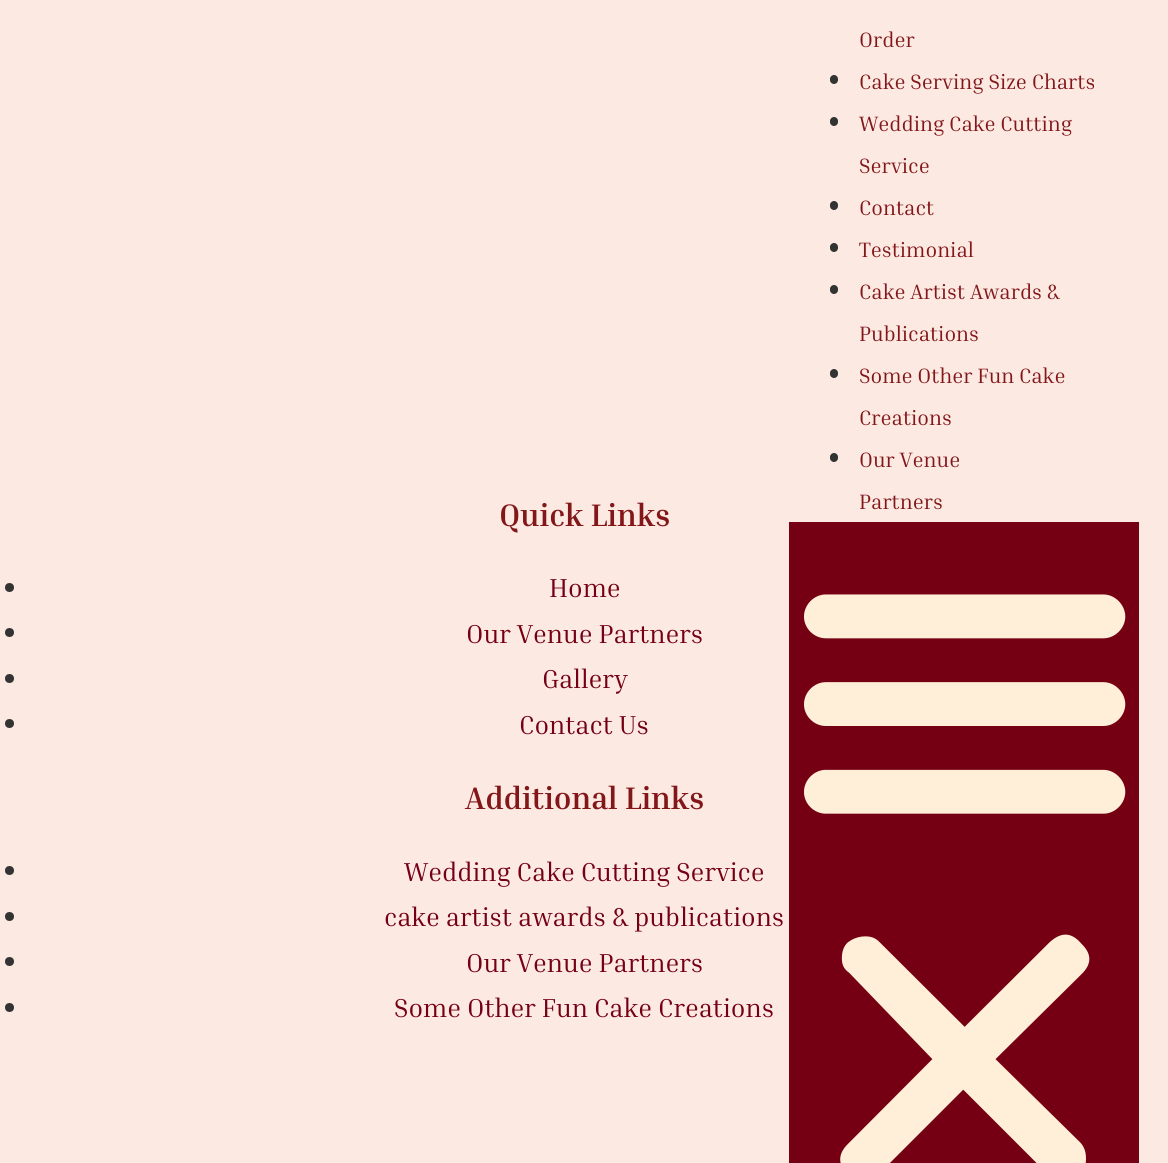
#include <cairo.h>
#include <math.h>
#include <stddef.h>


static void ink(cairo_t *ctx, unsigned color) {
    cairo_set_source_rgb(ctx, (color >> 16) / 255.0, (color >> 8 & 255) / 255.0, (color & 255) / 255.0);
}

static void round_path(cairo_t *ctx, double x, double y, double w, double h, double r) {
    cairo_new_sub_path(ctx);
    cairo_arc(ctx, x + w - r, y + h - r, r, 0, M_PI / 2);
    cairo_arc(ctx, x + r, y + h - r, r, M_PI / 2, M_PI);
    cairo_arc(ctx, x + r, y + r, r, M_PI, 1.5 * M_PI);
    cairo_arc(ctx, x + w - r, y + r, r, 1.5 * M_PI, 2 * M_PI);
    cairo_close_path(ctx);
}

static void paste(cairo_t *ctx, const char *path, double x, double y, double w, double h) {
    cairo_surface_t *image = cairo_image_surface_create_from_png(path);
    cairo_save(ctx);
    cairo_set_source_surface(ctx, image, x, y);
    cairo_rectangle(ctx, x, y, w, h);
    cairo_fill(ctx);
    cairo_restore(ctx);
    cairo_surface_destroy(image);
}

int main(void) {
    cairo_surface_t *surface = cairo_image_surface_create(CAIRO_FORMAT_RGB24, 1168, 1163);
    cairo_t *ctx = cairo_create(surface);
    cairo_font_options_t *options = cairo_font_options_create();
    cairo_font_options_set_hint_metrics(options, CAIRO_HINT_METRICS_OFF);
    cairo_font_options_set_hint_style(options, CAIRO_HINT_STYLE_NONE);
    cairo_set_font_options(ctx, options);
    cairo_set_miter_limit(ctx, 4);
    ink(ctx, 0xFBE9E2);
    cairo_paint(ctx);
    cairo_select_font_face(ctx, "Inria Serif", CAIRO_FONT_SLANT_NORMAL, CAIRO_FONT_WEIGHT_NORMAL);
    cairo_set_font_size(ctx, 21);
    ink(ctx, 0x831619);
    cairo_move_to(ctx, 859, 47);
    cairo_show_text(ctx, "Order");
    ink(ctx, 0x333333);
    round_path(ctx, 830, 75, 8, 9, 4);
    cairo_fill(ctx);
    ink(ctx, 0x831619);
    cairo_move_to(ctx, 859, 89);
    cairo_show_text(ctx, "Cake Serving Size Charts");
    ink(ctx, 0x333333);
    round_path(ctx, 830, 117, 8, 9, 4);
    cairo_fill(ctx);
    ink(ctx, 0x831619);
    cairo_move_to(ctx, 859, 131);
    cairo_show_text(ctx, "Wedding Cake Cutting");
    cairo_move_to(ctx, 859, 173);
    cairo_show_text(ctx, "Service");
    ink(ctx, 0x333333);
    round_path(ctx, 830, 201, 8, 9, 4);
    cairo_fill(ctx);
    ink(ctx, 0x831619);
    cairo_move_to(ctx, 859, 215);
    cairo_show_text(ctx, "Contact");
    ink(ctx, 0x333333);
    round_path(ctx, 830, 243, 8, 9, 4);
    cairo_fill(ctx);
    ink(ctx, 0x831619);
    cairo_move_to(ctx, 859, 257);
    cairo_show_text(ctx, "Testimonial");
    ink(ctx, 0x333333);
    round_path(ctx, 830, 285, 8, 9, 4);
    cairo_fill(ctx);
    ink(ctx, 0x831619);
    cairo_move_to(ctx, 859, 299);
    cairo_show_text(ctx, "Cake Artist Awards &");
    cairo_move_to(ctx, 859, 341);
    cairo_show_text(ctx, "Publications");
    ink(ctx, 0x333333);
    round_path(ctx, 830, 369, 8, 9, 4);
    cairo_fill(ctx);
    ink(ctx, 0x831619);
    cairo_move_to(ctx, 859, 383);
    cairo_show_text(ctx, "Some Other Fun Cake");
    cairo_move_to(ctx, 859, 425);
    cairo_show_text(ctx, "Creations");
    ink(ctx, 0x333333);
    round_path(ctx, 830, 453, 8, 9, 4);
    cairo_fill(ctx);
    ink(ctx, 0x831619);
    cairo_move_to(ctx, 859, 467);
    cairo_show_text(ctx, "Our Venue");
    cairo_move_to(ctx, 859, 509);
    cairo_show_text(ctx, "Partners");
    ink(ctx, 0x760013);
    cairo_rectangle(ctx, 789, 522, 350, 641);
    cairo_fill(ctx);
    paste(ctx, "media/1.png", 804, 594, 322, 220);
    paste(ctx, "media/2.png", 840, 934, 250, 229);
    cairo_select_font_face(ctx, "Inria Serif", CAIRO_FONT_SLANT_NORMAL, CAIRO_FONT_WEIGHT_BOLD);
    cairo_set_font_size(ctx, 31.5);
    ink(ctx, 0x831619);
    cairo_move_to(ctx, 499, 526);
    cairo_show_text(ctx, "Quick Links");
    ink(ctx, 0x333333);
    cairo_new_path(ctx);
    cairo_arc(ctx, 9.5, 587.5, 4.5, 0, 2 * M_PI);
    cairo_fill(ctx);
    cairo_select_font_face(ctx, "Inria Serif", CAIRO_FONT_SLANT_NORMAL, CAIRO_FONT_WEIGHT_NORMAL);
    cairo_set_font_size(ctx, 26.25);
    ink(ctx, 0x760013);
    cairo_move_to(ctx, 549, 597);
    cairo_show_text(ctx, "Home");
    ink(ctx, 0x333333);
    cairo_new_path(ctx);
    cairo_arc(ctx, 9.5, 632.5, 4.5, 0, 2 * M_PI);
    cairo_fill(ctx);
    ink(ctx, 0x760013);
    cairo_move_to(ctx, 466, 643);
    cairo_show_text(ctx, "Our Venue Partners");
    ink(ctx, 0x333333);
    cairo_new_path(ctx);
    cairo_arc(ctx, 9.5, 678.5, 4.5, 0, 2 * M_PI);
    cairo_fill(ctx);
    ink(ctx, 0x760013);
    cairo_move_to(ctx, 542, 688);
    cairo_show_text(ctx, "Gallery");
    ink(ctx, 0x333333);
    cairo_new_path(ctx);
    cairo_arc(ctx, 9.5, 723.5, 4.5, 0, 2 * M_PI);
    cairo_fill(ctx);
    ink(ctx, 0x760013);
    cairo_move_to(ctx, 519, 734);
    cairo_show_text(ctx, "Contact Us");
    cairo_select_font_face(ctx, "Inria Serif", CAIRO_FONT_SLANT_NORMAL, CAIRO_FONT_WEIGHT_BOLD);
    cairo_set_font_size(ctx, 31.5);
    ink(ctx, 0x831619);
    cairo_move_to(ctx, 465, 809);
    cairo_show_text(ctx, "Additional Links");
    ink(ctx, 0x333333);
    cairo_new_path(ctx);
    cairo_arc(ctx, 9.5, 870.5, 4.5, 0, 2 * M_PI);
    cairo_fill(ctx);
    cairo_select_font_face(ctx, "Inria Serif", CAIRO_FONT_SLANT_NORMAL, CAIRO_FONT_WEIGHT_NORMAL);
    cairo_set_font_size(ctx, 26.25);
    ink(ctx, 0x760013);
    cairo_move_to(ctx, 404, 881);
    cairo_show_text(ctx, "Wedding Cake Cutting Service");
    ink(ctx, 0x333333);
    cairo_new_path(ctx);
    cairo_arc(ctx, 9.5, 916.5, 4.5, 0, 2 * M_PI);
    cairo_fill(ctx);
    ink(ctx, 0x760013);
    cairo_move_to(ctx, 384, 926);
    cairo_show_text(ctx, "cake artist awards & publications");
    ink(ctx, 0x333333);
    cairo_new_path(ctx);
    cairo_arc(ctx, 9.5, 961.5, 4.5, 0, 2 * M_PI);
    cairo_fill(ctx);
    ink(ctx, 0x760013);
    cairo_move_to(ctx, 466, 972);
    cairo_show_text(ctx, "Our Venue Partners");
    ink(ctx, 0x333333);
    cairo_new_path(ctx);
    cairo_arc(ctx, 9.5, 1007.5, 4.5, 0, 2 * M_PI);
    cairo_fill(ctx);
    ink(ctx, 0x760013);
    cairo_move_to(ctx, 394, 1017);
    cairo_show_text(ctx, "Some Other Fun Cake Creations");
    cairo_surface_write_to_png(surface, "image.png");
    cairo_font_options_destroy(options);
    cairo_destroy(ctx);
    cairo_surface_destroy(surface);
    return 0;
}
